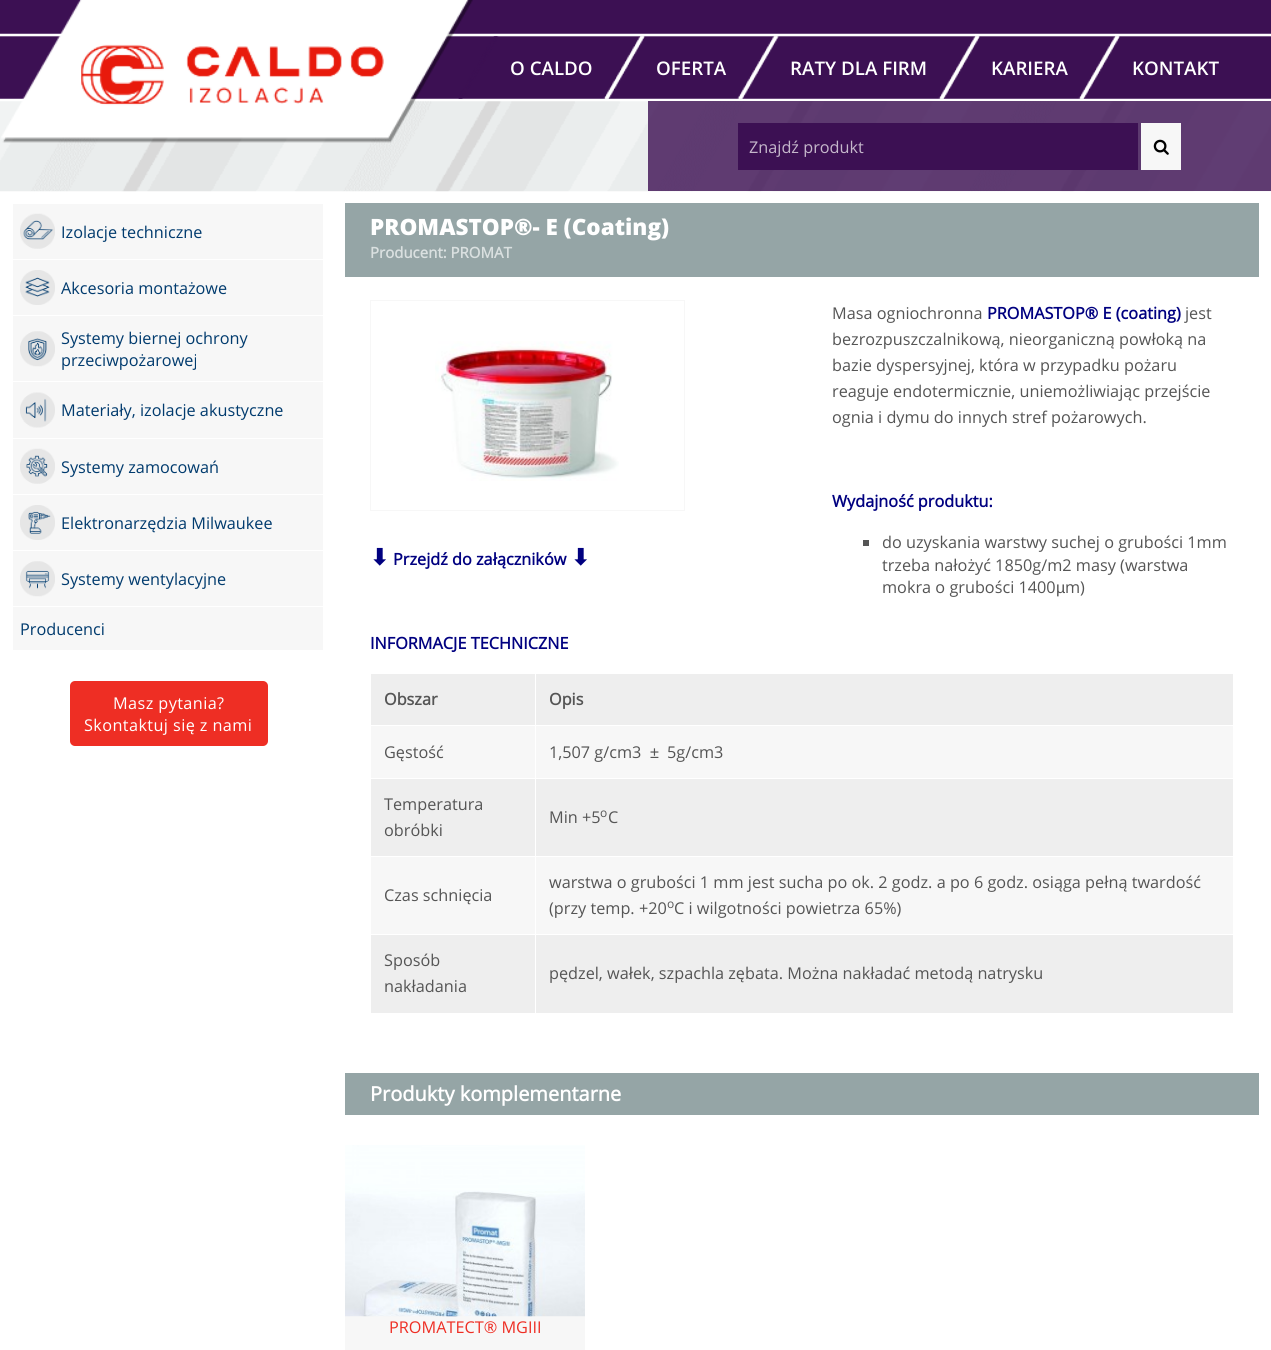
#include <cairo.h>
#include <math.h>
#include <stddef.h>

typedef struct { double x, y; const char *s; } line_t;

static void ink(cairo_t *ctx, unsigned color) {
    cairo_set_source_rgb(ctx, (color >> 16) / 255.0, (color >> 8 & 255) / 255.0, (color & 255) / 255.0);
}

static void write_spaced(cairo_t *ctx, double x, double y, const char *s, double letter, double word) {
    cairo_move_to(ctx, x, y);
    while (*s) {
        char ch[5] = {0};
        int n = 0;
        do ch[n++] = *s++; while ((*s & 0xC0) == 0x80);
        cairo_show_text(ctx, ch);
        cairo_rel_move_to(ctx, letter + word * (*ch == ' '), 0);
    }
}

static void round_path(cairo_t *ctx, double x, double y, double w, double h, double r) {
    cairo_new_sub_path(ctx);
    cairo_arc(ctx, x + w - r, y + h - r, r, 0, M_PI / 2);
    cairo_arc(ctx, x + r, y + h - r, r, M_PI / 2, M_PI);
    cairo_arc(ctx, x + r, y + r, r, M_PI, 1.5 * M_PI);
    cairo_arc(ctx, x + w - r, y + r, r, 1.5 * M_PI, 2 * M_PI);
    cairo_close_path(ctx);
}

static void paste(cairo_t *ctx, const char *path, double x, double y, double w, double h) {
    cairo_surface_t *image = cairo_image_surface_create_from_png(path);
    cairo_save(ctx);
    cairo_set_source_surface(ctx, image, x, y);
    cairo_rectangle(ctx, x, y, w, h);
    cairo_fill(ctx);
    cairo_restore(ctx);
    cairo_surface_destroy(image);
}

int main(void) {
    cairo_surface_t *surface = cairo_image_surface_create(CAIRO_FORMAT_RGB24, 1271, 1350);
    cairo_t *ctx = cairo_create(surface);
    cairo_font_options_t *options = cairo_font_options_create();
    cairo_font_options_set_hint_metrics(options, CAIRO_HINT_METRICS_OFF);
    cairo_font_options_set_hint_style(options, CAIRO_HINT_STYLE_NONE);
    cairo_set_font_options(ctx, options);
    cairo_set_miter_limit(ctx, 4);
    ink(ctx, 0xFFFFFF);
    cairo_paint(ctx);
    paste(ctx, "media/1.png", 0, 0, 1271, 99);
    paste(ctx, "media/3.png", 458, 36, 187, 63);
    paste(ctx, "media/8.png", 0, 101, 1271, 91);
    paste(ctx, "media/2.png", 1, 0, 472, 143);
    cairo_select_font_face(ctx, "Open Sans SemiBold", CAIRO_FONT_SLANT_NORMAL, CAIRO_FONT_WEIGHT_NORMAL);
    cairo_set_font_size(ctx, 18.75);
    ink(ctx, 0xFFFFFF);
    cairo_move_to(ctx, 510, 75);
    cairo_show_text(ctx, "O CALDO");
    paste(ctx, "media/4.png", 603, 36, 176, 63);
    cairo_move_to(ctx, 656, 75);
    cairo_show_text(ctx, "OFERTA");
    paste(ctx, "media/5.png", 737, 36, 243, 63);
    cairo_move_to(ctx, 790, 75);
    cairo_show_text(ctx, "RATY DLA FIRM");
    paste(ctx, "media/6.png", 938, 36, 182, 63);
    cairo_move_to(ctx, 991, 75);
    cairo_show_text(ctx, "KARIERA");
    paste(ctx, "media/7.png", 1078, 36, 42, 63);
    cairo_move_to(ctx, 1132, 75);
    cairo_show_text(ctx, "KONTAKT");
    cairo_set_source_rgba(ctx, 0.235, 0.063, 0.325, 0.8);
    cairo_rectangle(ctx, 648, 101, 623, 90);
    cairo_fill(ctx);
    ink(ctx, 0x3C1053);
    cairo_rectangle(ctx, 738, 123, 400, 47);
    cairo_fill(ctx);
    cairo_select_font_face(ctx, "Open Sans", CAIRO_FONT_SLANT_NORMAL, CAIRO_FONT_WEIGHT_NORMAL);
    cairo_set_font_size(ctx, 16.25);
    ink(ctx, 0xC5B7CB);
    cairo_move_to(ctx, 749, 153);
    cairo_show_text(ctx, "Znajdź produkt");
    ink(ctx, 0xF7F7F7);
    cairo_rectangle(ctx, 1141, 123, 40, 47);
    cairo_fill(ctx);
    paste(ctx, "media/9.png", 1153, 139, 16, 16);
    cairo_rectangle(ctx, 13, 204, 310, 55);
    cairo_fill(ctx);
    paste(ctx, "media/10.png", 20, 213, 35, 36);
    ink(ctx, 0x013B6E);
    cairo_move_to(ctx, 61, 238);
    cairo_show_text(ctx, "Izolacje techniczne");
    ink(ctx, 0xF7F7F7);
    cairo_rectangle(ctx, 13, 260, 310, 55);
    cairo_fill(ctx);
    paste(ctx, "media/11.png", 20, 270, 35, 35);
    ink(ctx, 0x013B6E);
    cairo_move_to(ctx, 61, 294);
    cairo_show_text(ctx, "Akcesoria montażowe");
    ink(ctx, 0xF7F7F7);
    cairo_rectangle(ctx, 13, 316, 310, 122);
    cairo_fill(ctx);
    ink(ctx, 0xFFFFFF);
    cairo_rectangle(ctx, 13, 381, 311, 1);
    cairo_fill(ctx);
    paste(ctx, "media/12.png", 20, 331, 35, 36);
    ink(ctx, 0x013B6E);
    cairo_move_to(ctx, 61, 344);
    cairo_show_text(ctx, "Systemy biernej ochrony");
    cairo_move_to(ctx, 61, 366);
    cairo_show_text(ctx, "przeciwpożarowej");
    paste(ctx, "media/13.png", 20, 392, 35, 36);
    cairo_move_to(ctx, 61, 416);
    cairo_show_text(ctx, "Materiały, izolacje akustyczne");
    ink(ctx, 0xF7F7F7);
    cairo_rectangle(ctx, 13, 439, 310, 55);
    cairo_fill(ctx);
    paste(ctx, "media/14.png", 20, 448, 35, 36);
    ink(ctx, 0x013B6E);
    cairo_move_to(ctx, 61, 473);
    cairo_show_text(ctx, "Systemy zamocowań");
    ink(ctx, 0xF7F7F7);
    cairo_rectangle(ctx, 13, 495, 310, 55);
    cairo_fill(ctx);
    paste(ctx, "media/15.png", 20, 505, 35, 35);
    ink(ctx, 0x013B6E);
    cairo_move_to(ctx, 61, 529);
    cairo_show_text(ctx, "Elektronarzędzia Milwaukee");
    ink(ctx, 0xF7F7F7);
    cairo_rectangle(ctx, 13, 551, 310, 99);
    cairo_fill(ctx);
    ink(ctx, 0xFFFFFF);
    cairo_rectangle(ctx, 13, 606, 311, 1);
    cairo_fill(ctx);
    paste(ctx, "media/16.png", 20, 561, 35, 36);
    ink(ctx, 0x013B6E);
    cairo_move_to(ctx, 61, 585);
    cairo_show_text(ctx, "Systemy wentylacyjne");
    cairo_move_to(ctx, 20, 635);
    cairo_show_text(ctx, "Producenci");
    ink(ctx, 0xEE2E24);
    round_path(ctx, 70, 681, 198, 65, 5);
    cairo_fill(ctx);
    ink(ctx, 0xFFFFFF);
    write_spaced(ctx, 113, 709, "Masz pytania?", 0.4, 0);
    write_spaced(ctx, 84, 731, "Skontaktuj się z nami", 0.4, 0);
    ink(ctx, 0x95A5A6);
    cairo_rectangle(ctx, 345, 203, 914, 74);
    cairo_fill(ctx);
    cairo_select_font_face(ctx, "Open Sans ExtraBold", CAIRO_FONT_SLANT_NORMAL, CAIRO_FONT_WEIGHT_NORMAL);
    cairo_set_font_size(ctx, 22.5);
    ink(ctx, 0xFFFFFF);
    cairo_move_to(ctx, 370, 235);
    cairo_show_text(ctx, "PROMASTOP®- E (Coating)");
    cairo_select_font_face(ctx, "Open Sans", CAIRO_FONT_SLANT_NORMAL, CAIRO_FONT_WEIGHT_BOLD);
    cairo_set_font_size(ctx, 15);
    ink(ctx, 0xDAE0E0);
    cairo_move_to(ctx, 370, 258);
    cairo_show_text(ctx, "Producent: PROMAT");
    cairo_select_font_face(ctx, "Open Sans", CAIRO_FONT_SLANT_NORMAL, CAIRO_FONT_WEIGHT_NORMAL);
    cairo_set_font_size(ctx, 16.25);
    ink(ctx, 0x555555);
    cairo_move_to(ctx, 832, 319);
    cairo_show_text(ctx, "Masa ogniochronna");
    cairo_select_font_face(ctx, "Open Sans", CAIRO_FONT_SLANT_NORMAL, CAIRO_FONT_WEIGHT_BOLD);
    ink(ctx, 0x000080);
    cairo_move_to(ctx, 987, 319);
    cairo_show_text(ctx, "PROMASTOP® E (coating)");
    cairo_select_font_face(ctx, "Open Sans", CAIRO_FONT_SLANT_NORMAL, CAIRO_FONT_WEIGHT_NORMAL);
    ink(ctx, 0x555555);
    {
        static const line_t items[] = {
            {1185, 319, "jest"},
            {832, 345, "bezrozpuszczalnikową, nieorganiczną powłoką na"},
            {832, 371, "bazie dyspersyjnej, która w przypadku pożaru"},
            {832, 397, "reaguje endotermicznie, uniemożliwiając przejście"},
            {832, 423, "ognia i dymu do innych stref pożarowych."},
        };
        for (size_t i = 0; i < sizeof items / sizeof *items; i++) {
            cairo_move_to(ctx, items[i].x, items[i].y);
            cairo_show_text(ctx, items[i].s);
        }
    }
    cairo_select_font_face(ctx, "Open Sans", CAIRO_FONT_SLANT_NORMAL, CAIRO_FONT_WEIGHT_BOLD);
    ink(ctx, 0x000080);
    cairo_move_to(ctx, 832, 507);
    cairo_show_text(ctx, "Wydajność produktu:");
    cairo_rectangle(ctx, 370.5, 300.5, 314, 210);
    ink(ctx, 0xF7F7F7);
    cairo_set_line_width(ctx, 1);
    cairo_stroke(ctx);
    paste(ctx, "media/17.png", 435, 341, 184, 140);
    cairo_select_font_face(ctx, "DejaVu Sans", CAIRO_FONT_SLANT_NORMAL, CAIRO_FONT_WEIGHT_BOLD);
    cairo_set_font_size(ctx, 22.5);
    ink(ctx, 0x000080);
    cairo_move_to(ctx, 370, 565);
    cairo_show_text(ctx, "⬇");
    cairo_select_font_face(ctx, "Open Sans", CAIRO_FONT_SLANT_NORMAL, CAIRO_FONT_WEIGHT_BOLD);
    cairo_set_font_size(ctx, 16.25);
    cairo_move_to(ctx, 393, 565);
    cairo_show_text(ctx, "Przejdź do załączników");
    cairo_select_font_face(ctx, "DejaVu Sans", CAIRO_FONT_SLANT_NORMAL, CAIRO_FONT_WEIGHT_BOLD);
    cairo_set_font_size(ctx, 22.5);
    cairo_move_to(ctx, 571, 565);
    cairo_show_text(ctx, "⬇");
    ink(ctx, 0x555555);
    cairo_rectangle(ctx, 863, 540, 6, 6);
    cairo_fill(ctx);
    cairo_select_font_face(ctx, "Open Sans", CAIRO_FONT_SLANT_NORMAL, CAIRO_FONT_WEIGHT_NORMAL);
    cairo_set_font_size(ctx, 16.25);
    {
        static const line_t items[] = {
            {882, 548, "do uzyskania warstwy suchej o grubości 1mm"},
            {882, 571, "trzeba nałożyć 1850g/m2 masy (warstwa"},
            {882, 593, "mokra o grubości 1400"},
        };
        for (size_t i = 0; i < sizeof items / sizeof *items; i++) {
            cairo_move_to(ctx, items[i].x, items[i].y);
            cairo_show_text(ctx, items[i].s);
        }
    }
    cairo_select_font_face(ctx, "Liberation Sans", CAIRO_FONT_SLANT_NORMAL, CAIRO_FONT_WEIGHT_NORMAL);
    cairo_move_to(ctx, 1056, 593);
    cairo_show_text(ctx, "µ");
    cairo_select_font_face(ctx, "Open Sans", CAIRO_FONT_SLANT_NORMAL, CAIRO_FONT_WEIGHT_NORMAL);
    cairo_move_to(ctx, 1065, 593);
    cairo_show_text(ctx, "m)");
    cairo_select_font_face(ctx, "Open Sans", CAIRO_FONT_SLANT_NORMAL, CAIRO_FONT_WEIGHT_BOLD);
    ink(ctx, 0x000080);
    cairo_move_to(ctx, 370, 649);
    cairo_show_text(ctx, "INFORMACJE TECHNICZNE");
    ink(ctx, 0xEEEEEE);
    cairo_rectangle(ctx, 371, 674, 164, 51);
    cairo_fill(ctx);
    ink(ctx, 0x555555);
    cairo_move_to(ctx, 384, 705);
    cairo_show_text(ctx, "Obszar");
    ink(ctx, 0xEEEEEE);
    cairo_rectangle(ctx, 536, 674, 697, 51);
    cairo_fill(ctx);
    ink(ctx, 0x555555);
    cairo_move_to(ctx, 549, 705);
    cairo_show_text(ctx, "Opis");
    ink(ctx, 0xF7F7F7);
    cairo_rectangle(ctx, 371, 726, 164, 52);
    cairo_fill(ctx);
    cairo_select_font_face(ctx, "Open Sans", CAIRO_FONT_SLANT_NORMAL, CAIRO_FONT_WEIGHT_NORMAL);
    ink(ctx, 0x555555);
    cairo_move_to(ctx, 384, 758);
    cairo_show_text(ctx, "Gęstość");
    ink(ctx, 0xF7F7F7);
    cairo_rectangle(ctx, 536, 726, 697, 52);
    cairo_fill(ctx);
    ink(ctx, 0x555555);
    cairo_move_to(ctx, 549, 758);
    cairo_show_text(ctx, "1,507 g/cm3");
    cairo_select_font_face(ctx, "Liberation Sans", CAIRO_FONT_SLANT_NORMAL, CAIRO_FONT_WEIGHT_NORMAL);
    cairo_move_to(ctx, 650, 758);
    cairo_show_text(ctx, "±");
    cairo_select_font_face(ctx, "Open Sans", CAIRO_FONT_SLANT_NORMAL, CAIRO_FONT_WEIGHT_NORMAL);
    cairo_move_to(ctx, 667, 758);
    cairo_show_text(ctx, "5g/cm3");
    ink(ctx, 0xEEEEEE);
    cairo_rectangle(ctx, 371, 779, 164, 77);
    cairo_fill(ctx);
    ink(ctx, 0x555555);
    cairo_move_to(ctx, 384, 810);
    cairo_show_text(ctx, "Temperatura");
    cairo_move_to(ctx, 384, 836);
    cairo_show_text(ctx, "obróbki");
    ink(ctx, 0xEEEEEE);
    cairo_rectangle(ctx, 536, 779, 697, 77);
    cairo_fill(ctx);
    ink(ctx, 0x555555);
    cairo_move_to(ctx, 549, 823);
    cairo_show_text(ctx, "Min +5");
    cairo_set_font_size(ctx, 12);
    cairo_move_to(ctx, 600, 817);
    cairo_show_text(ctx, "o");
    cairo_set_font_size(ctx, 16.25);
    cairo_move_to(ctx, 608, 823);
    cairo_show_text(ctx, "C");
    ink(ctx, 0xF7F7F7);
    cairo_rectangle(ctx, 371, 857, 164, 77);
    cairo_fill(ctx);
    ink(ctx, 0x555555);
    cairo_move_to(ctx, 384, 901);
    cairo_show_text(ctx, "Czas schnięcia");
    ink(ctx, 0xF7F7F7);
    cairo_rectangle(ctx, 536, 857, 697, 77);
    cairo_fill(ctx);
    ink(ctx, 0x555555);
    cairo_move_to(ctx, 549, 888);
    cairo_show_text(ctx, "warstwa o grubości 1 mm jest sucha po ok. 2 godz. a po 6 godz. osiąga pełną twardość");
    cairo_move_to(ctx, 549, 914);
    cairo_show_text(ctx, "(przy temp. +20");
    cairo_set_font_size(ctx, 12);
    cairo_move_to(ctx, 667, 908);
    cairo_show_text(ctx, "o");
    cairo_set_font_size(ctx, 16.25);
    cairo_move_to(ctx, 674, 914);
    cairo_show_text(ctx, "C i wilgotności powietrza 65%)");
    ink(ctx, 0xEEEEEE);
    cairo_rectangle(ctx, 371, 935, 164, 78);
    cairo_fill(ctx);
    ink(ctx, 0x555555);
    cairo_move_to(ctx, 384, 966);
    cairo_show_text(ctx, "Sposób");
    cairo_move_to(ctx, 384, 992);
    cairo_show_text(ctx, "nakładania");
    ink(ctx, 0xEEEEEE);
    cairo_rectangle(ctx, 536, 935, 697, 78);
    cairo_fill(ctx);
    ink(ctx, 0x555555);
    cairo_move_to(ctx, 549, 979);
    cairo_show_text(ctx, "pędzel, wałek, szpachla zębata. Można nakładać metodą natrysku");
    ink(ctx, 0x95A5A6);
    cairo_rectangle(ctx, 345, 1073, 914, 42);
    cairo_fill(ctx);
    cairo_select_font_face(ctx, "Open Sans", CAIRO_FONT_SLANT_NORMAL, CAIRO_FONT_WEIGHT_BOLD);
    cairo_set_font_size(ctx, 20);
    ink(ctx, 0xFFFFFF);
    cairo_move_to(ctx, 370, 1101);
    cairo_show_text(ctx, "Produkty komplementarne");
    ink(ctx, 0xF7F7F7);
    cairo_rectangle(ctx, 345, 1316, 240, 34);
    cairo_fill(ctx);
    paste(ctx, "media/18.png", 345, 1145, 240, 172);
    cairo_select_font_face(ctx, "Open Sans", CAIRO_FONT_SLANT_NORMAL, CAIRO_FONT_WEIGHT_NORMAL);
    cairo_set_font_size(ctx, 16.25);
    ink(ctx, 0xEE2E24);
    cairo_move_to(ctx, 389, 1333);
    cairo_show_text(ctx, "PROMATECT® MGIII");
    cairo_surface_write_to_png(surface, "image.png");
    cairo_font_options_destroy(options);
    cairo_destroy(ctx);
    cairo_surface_destroy(surface);
    return 0;
}
